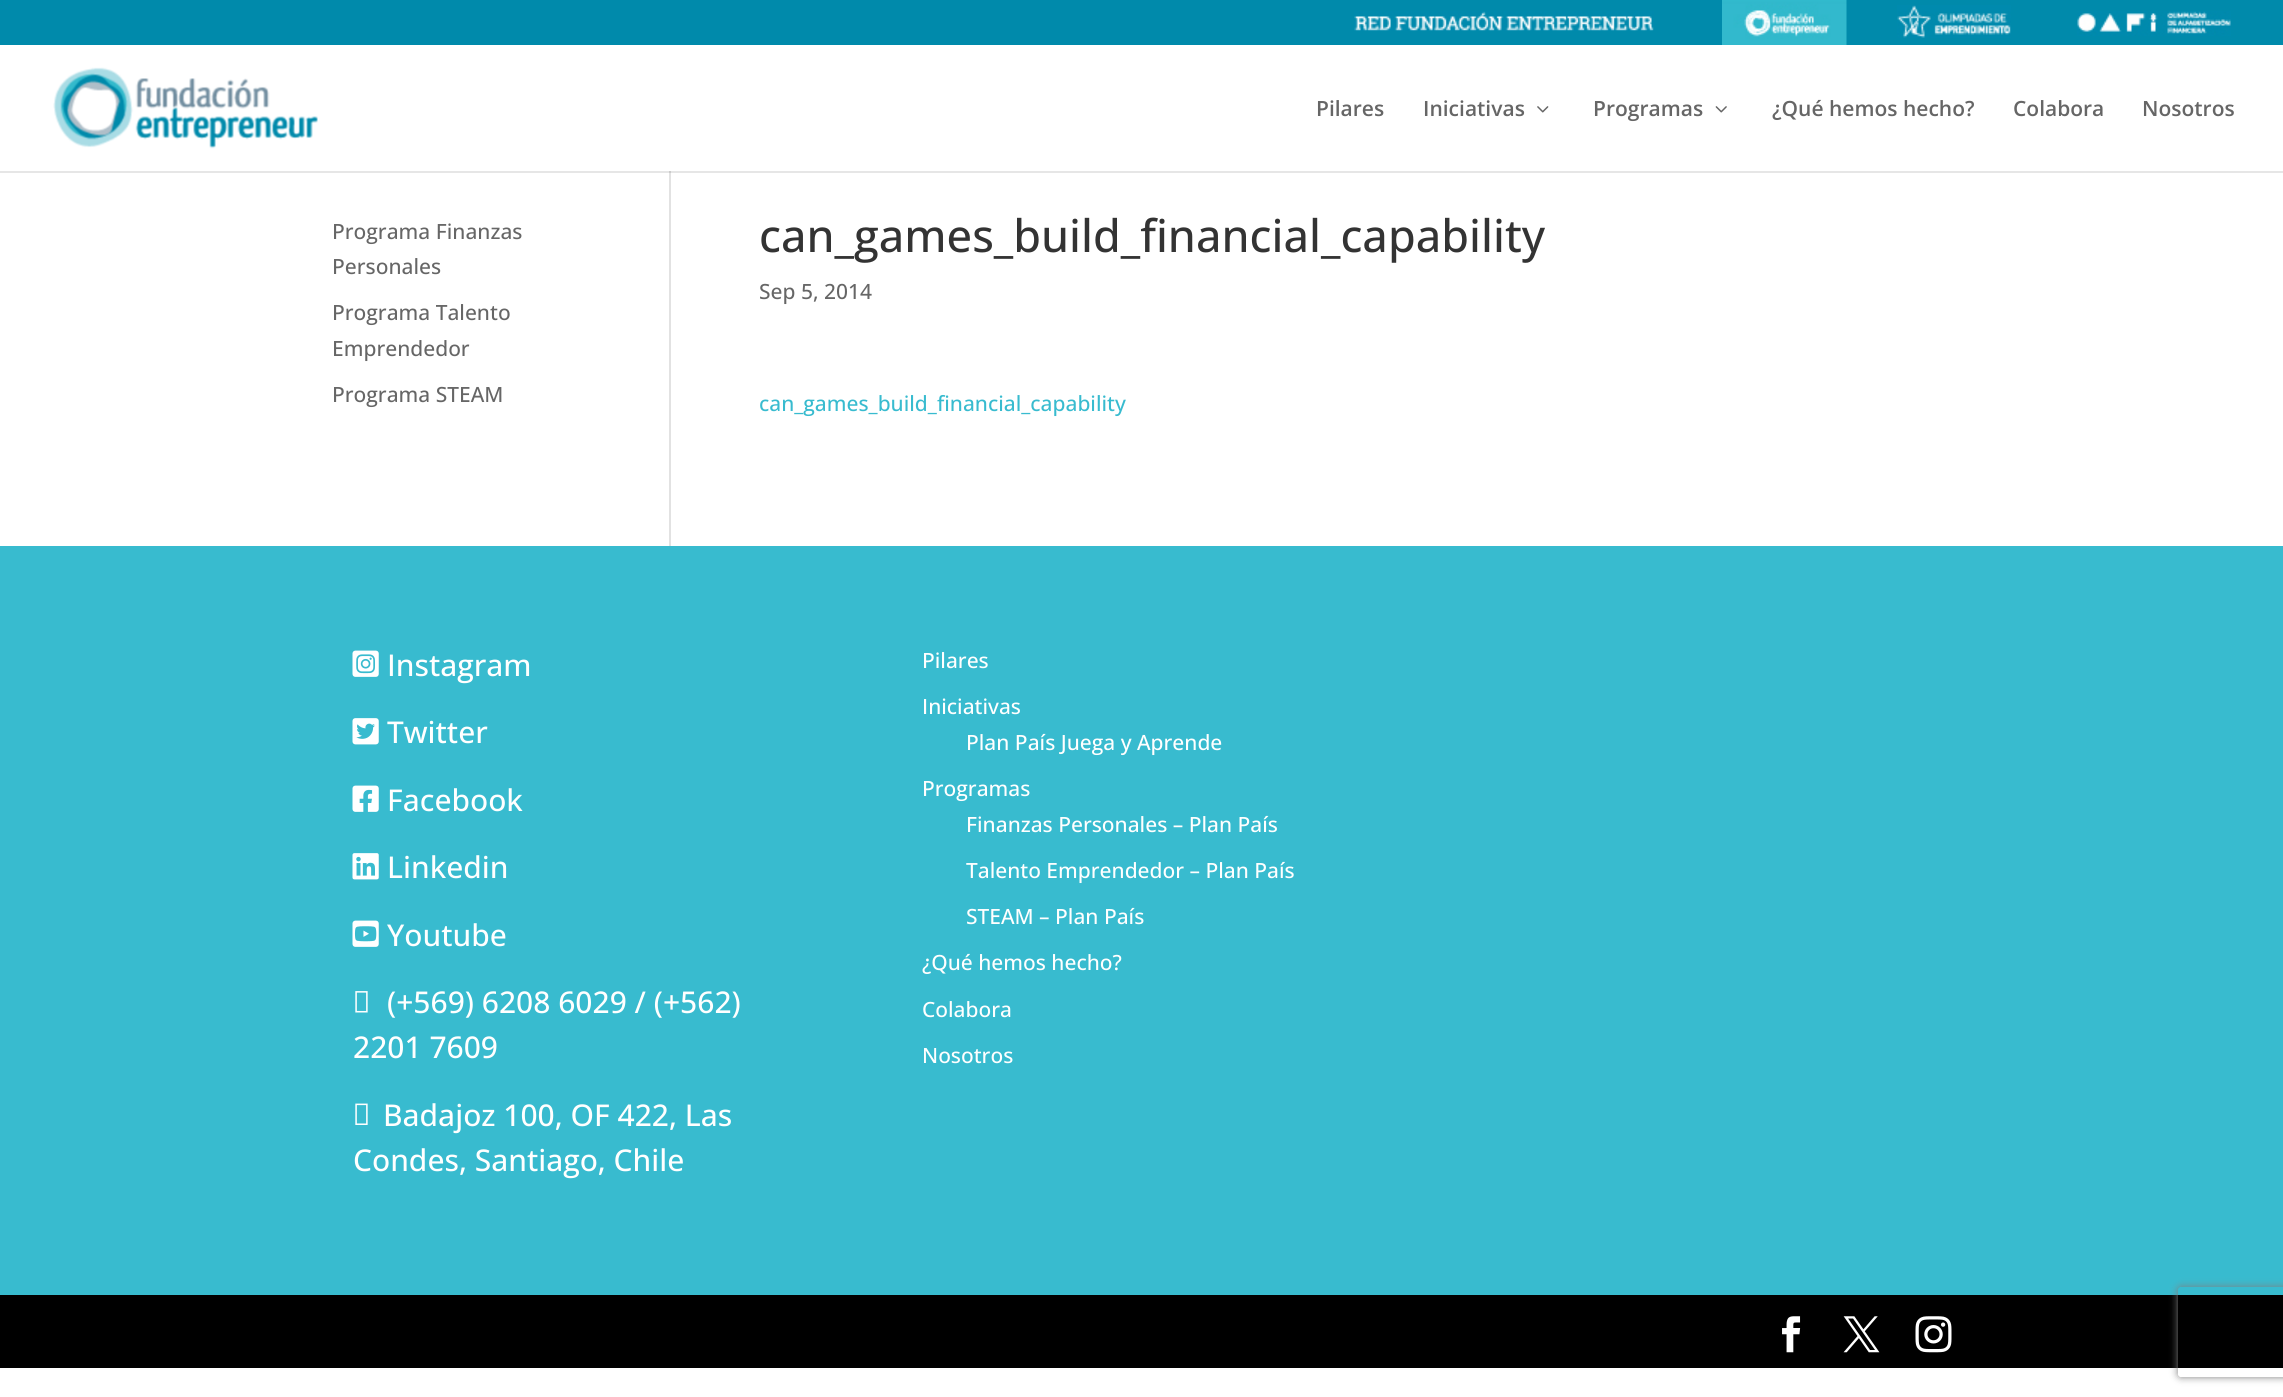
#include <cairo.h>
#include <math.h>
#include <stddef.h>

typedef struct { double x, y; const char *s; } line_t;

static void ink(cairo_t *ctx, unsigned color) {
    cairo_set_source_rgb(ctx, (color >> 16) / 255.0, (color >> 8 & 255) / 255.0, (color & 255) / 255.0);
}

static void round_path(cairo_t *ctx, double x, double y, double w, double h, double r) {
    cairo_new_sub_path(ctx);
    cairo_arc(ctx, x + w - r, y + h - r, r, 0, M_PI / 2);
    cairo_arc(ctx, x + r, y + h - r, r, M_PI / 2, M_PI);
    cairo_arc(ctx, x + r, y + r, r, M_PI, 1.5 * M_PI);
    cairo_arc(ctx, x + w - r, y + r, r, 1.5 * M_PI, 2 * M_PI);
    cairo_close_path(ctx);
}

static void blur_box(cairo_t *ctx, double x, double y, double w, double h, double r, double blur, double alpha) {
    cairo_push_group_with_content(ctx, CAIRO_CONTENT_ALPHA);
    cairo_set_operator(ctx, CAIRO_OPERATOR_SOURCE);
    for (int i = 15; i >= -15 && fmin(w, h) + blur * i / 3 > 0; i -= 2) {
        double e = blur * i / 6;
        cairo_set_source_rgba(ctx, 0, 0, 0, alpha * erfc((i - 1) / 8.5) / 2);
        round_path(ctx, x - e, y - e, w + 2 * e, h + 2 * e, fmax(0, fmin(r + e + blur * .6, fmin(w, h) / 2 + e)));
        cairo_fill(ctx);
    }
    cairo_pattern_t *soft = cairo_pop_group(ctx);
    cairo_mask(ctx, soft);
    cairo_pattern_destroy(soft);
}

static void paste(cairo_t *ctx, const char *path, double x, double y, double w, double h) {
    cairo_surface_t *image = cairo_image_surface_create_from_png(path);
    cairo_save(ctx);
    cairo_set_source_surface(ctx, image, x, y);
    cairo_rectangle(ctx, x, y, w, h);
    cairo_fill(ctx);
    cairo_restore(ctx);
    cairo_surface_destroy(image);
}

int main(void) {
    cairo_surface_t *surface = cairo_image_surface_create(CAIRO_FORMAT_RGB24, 2283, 1397);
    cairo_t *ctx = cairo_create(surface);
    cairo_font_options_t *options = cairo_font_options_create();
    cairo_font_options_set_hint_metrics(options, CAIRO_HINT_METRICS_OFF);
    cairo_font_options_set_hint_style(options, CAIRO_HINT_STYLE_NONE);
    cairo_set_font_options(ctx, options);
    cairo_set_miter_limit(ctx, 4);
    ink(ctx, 0xFFFFFF);
    cairo_paint(ctx);
    ink(ctx, 0xE6E6E6);
    cairo_rectangle(ctx, 0, 171, 2283, 2);
    cairo_fill(ctx);
    ink(ctx, 0x008AAB);
    cairo_rectangle(ctx, 0, 0, 2283, 45);
    cairo_fill(ctx);
    paste(ctx, "media/1.png", 1354, 11, 300, 20);
    paste(ctx, "media/2.png", 1722, 0, 125, 45);
    paste(ctx, "media/3.png", 1897, 5, 114, 33);
    paste(ctx, "media/4.png", 2077, 11, 154, 25);
    paste(ctx, "media/5.png", 53, 67, 265, 82);
    cairo_select_font_face(ctx, "Open Sans SemiBold", CAIRO_FONT_SLANT_NORMAL, CAIRO_FONT_WEIGHT_NORMAL);
    cairo_set_font_size(ctx, 21);
    ink(ctx, 0x666666);
    cairo_move_to(ctx, 1316, 116);
    cairo_show_text(ctx, "Pilares");
    cairo_move_to(ctx, 1423, 116);
    cairo_show_text(ctx, "Iniciativas");
    paste(ctx, "media/6.png", 1537, 106, 12, 7);
    cairo_move_to(ctx, 1593, 116);
    cairo_show_text(ctx, "Programas");
    paste(ctx, "media/7.png", 1715, 106, 12, 7);
    {
        static const line_t items[] = {
            {1772, 116, "¿Qué hemos hecho?"},
            {2013, 116, "Colabora"},
            {2142, 116, "Nosotros"},
        };
        for (size_t i = 0; i < sizeof items / sizeof *items; i++) {
            cairo_move_to(ctx, items[i].x, items[i].y);
            cairo_show_text(ctx, items[i].s);
        }
    }
    ink(ctx, 0xE2E2E2);
    cairo_rectangle(ctx, 669, 173, 2, 373);
    cairo_fill(ctx);
    ink(ctx, 0xCBCBCB);
    cairo_rectangle(ctx, 669, 171, 2, 2);
    cairo_fill(ctx);
    cairo_select_font_face(ctx, "Open Sans Medium", CAIRO_FONT_SLANT_NORMAL, CAIRO_FONT_WEIGHT_NORMAL);
    ink(ctx, 0x666666);
    {
        static const line_t items[] = {
            {332, 239, "Programa Finanzas"},
            {332, 274, "Personales"},
            {332, 320, "Programa Talento"},
            {332, 356, "Emprendedor"},
            {332, 402, "Programa STEAM"},
        };
        for (size_t i = 0; i < sizeof items / sizeof *items; i++) {
            cairo_move_to(ctx, items[i].x, items[i].y);
            cairo_show_text(ctx, items[i].s);
        }
    }
    cairo_set_font_size(ctx, 45);
    ink(ctx, 0x333333);
    cairo_move_to(ctx, 759, 252);
    cairo_show_text(ctx, "can_games_build_financial_capability");
    cairo_set_font_size(ctx, 21);
    ink(ctx, 0x666666);
    cairo_move_to(ctx, 759, 299);
    cairo_show_text(ctx, "Sep 5, 2014");
    ink(ctx, 0x38BBCF);
    cairo_move_to(ctx, 759, 411);
    cairo_show_text(ctx, "can_games_build_financial_capability");
    cairo_rectangle(ctx, 0, 546, 2283, 749);
    cairo_fill(ctx);
    paste(ctx, "media/8.png", 352, 650, 27, 27);
    cairo_set_font_size(ctx, 30);
    ink(ctx, 0xFFFFFF);
    cairo_move_to(ctx, 387, 676);
    cairo_show_text(ctx, "Instagram");
    paste(ctx, "media/9.png", 352, 718, 27, 27);
    cairo_move_to(ctx, 387, 743);
    cairo_show_text(ctx, "Twitter");
    paste(ctx, "media/10.png", 352, 785, 27, 27);
    cairo_move_to(ctx, 387, 811);
    cairo_show_text(ctx, "Facebook");
    paste(ctx, "media/11.png", 352, 853, 27, 27);
    cairo_move_to(ctx, 387, 878);
    cairo_show_text(ctx, "Linkedin");
    paste(ctx, "media/12.png", 352, 920, 27, 27);
    cairo_move_to(ctx, 387, 946);
    cairo_show_text(ctx, "Youtube");
    paste(ctx, "media/13.png", 355, 991, 13, 22);
    cairo_move_to(ctx, 387, 1013);
    cairo_show_text(ctx, "(+569) 6208 6029 / (+562)");
    cairo_move_to(ctx, 353, 1058);
    cairo_show_text(ctx, "2201 7609");
    paste(ctx, "media/14.png", 355, 1103, 13, 22);
    cairo_move_to(ctx, 383, 1126);
    cairo_show_text(ctx, "Badajoz 100, OF 422, Las");
    cairo_move_to(ctx, 353, 1171);
    cairo_show_text(ctx, "Condes, Santiago, Chile");
    cairo_set_font_size(ctx, 21);
    {
        static const line_t items[] = {
            {922, 668, "Pilares"},
            {922, 714, "Iniciativas"},
            {966, 750, "Plan País Juega y Aprende"},
            {922, 796, "Programas"},
            {966, 832, "Finanzas Personales – Plan País"},
            {966, 878, "Talento Emprendedor – Plan País"},
            {966, 924, "STEAM – Plan País"},
            {922, 970, "¿Qué hemos hecho?"},
            {922, 1017, "Colabora"},
            {922, 1063, "Nosotros"},
        };
        for (size_t i = 0; i < sizeof items / sizeof *items; i++) {
            cairo_move_to(ctx, items[i].x, items[i].y);
            cairo_show_text(ctx, items[i].s);
        }
    }
    ink(ctx, 0x000000);
    cairo_rectangle(ctx, 0, 1295, 2283, 73);
    cairo_fill(ctx);
    paste(ctx, "media/15.png", 1782, 1316, 19, 37);
    paste(ctx, "media/16.png", 1843, 1316, 37, 37);
    paste(ctx, "media/17.png", 1915, 1316, 37, 37);
    cairo_save(ctx);
    cairo_set_fill_rule(ctx, CAIRO_FILL_RULE_EVEN_ODD);
    cairo_new_path(ctx);
    cairo_move_to(ctx, 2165, 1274);
    cairo_line_to(ctx, 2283, 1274);
    cairo_line_to(ctx, 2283, 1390);
    cairo_line_to(ctx, 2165, 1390);
    cairo_close_path(ctx);
    cairo_move_to(ctx, 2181, 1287);
    cairo_line_to(ctx, 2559, 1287);
    cairo_curve_to(ctx, 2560.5, 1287, 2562, 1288.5, 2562, 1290);
    cairo_line_to(ctx, 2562, 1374);
    cairo_curve_to(ctx, 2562, 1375.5, 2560.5, 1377, 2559, 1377);
    cairo_line_to(ctx, 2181, 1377);
    cairo_curve_to(ctx, 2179.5, 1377, 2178, 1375.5, 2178, 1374);
    cairo_line_to(ctx, 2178, 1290);
    cairo_curve_to(ctx, 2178, 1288.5, 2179.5, 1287, 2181, 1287);
    cairo_close_path(ctx);
    cairo_clip(ctx);
    ink(ctx, 0x808080);
    blur_box(ctx, 2178, 1287, 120, 90, 3, 4, 1);
    cairo_restore(ctx);
    cairo_surface_write_to_png(surface, "image.png");
    cairo_font_options_destroy(options);
    cairo_destroy(ctx);
    cairo_surface_destroy(surface);
    return 0;
}
